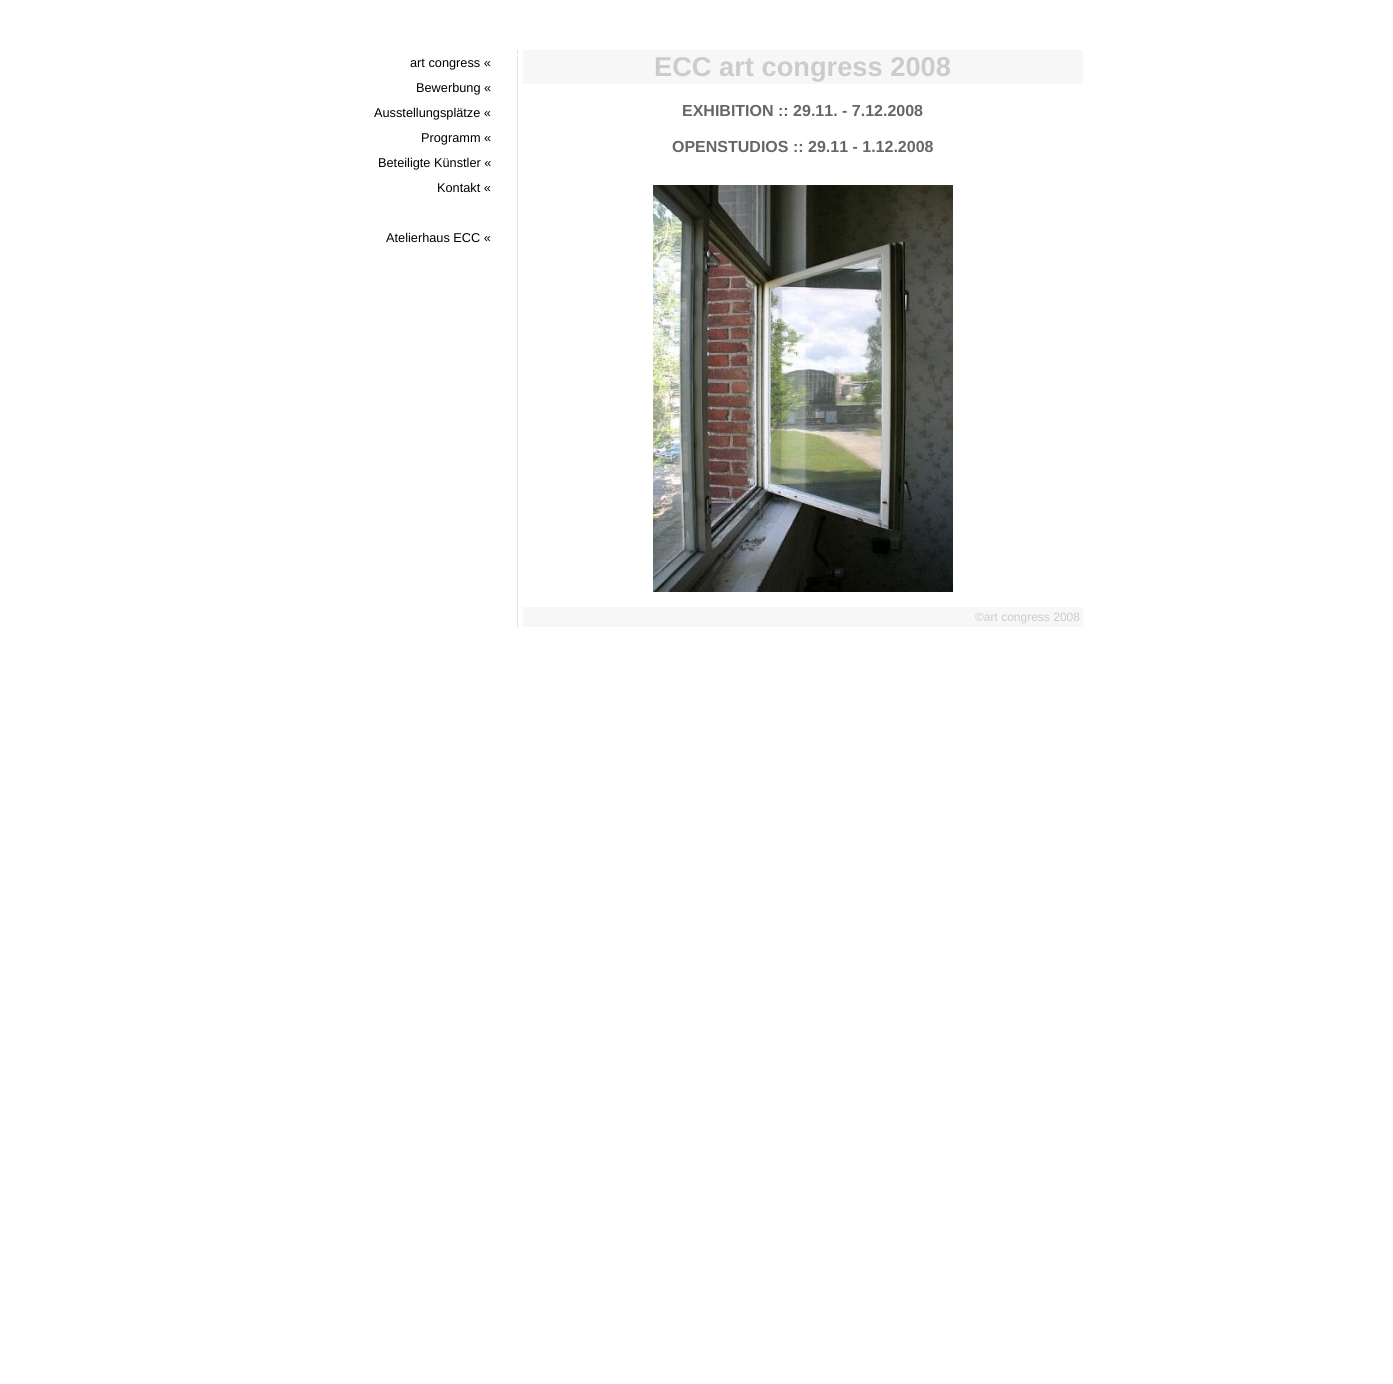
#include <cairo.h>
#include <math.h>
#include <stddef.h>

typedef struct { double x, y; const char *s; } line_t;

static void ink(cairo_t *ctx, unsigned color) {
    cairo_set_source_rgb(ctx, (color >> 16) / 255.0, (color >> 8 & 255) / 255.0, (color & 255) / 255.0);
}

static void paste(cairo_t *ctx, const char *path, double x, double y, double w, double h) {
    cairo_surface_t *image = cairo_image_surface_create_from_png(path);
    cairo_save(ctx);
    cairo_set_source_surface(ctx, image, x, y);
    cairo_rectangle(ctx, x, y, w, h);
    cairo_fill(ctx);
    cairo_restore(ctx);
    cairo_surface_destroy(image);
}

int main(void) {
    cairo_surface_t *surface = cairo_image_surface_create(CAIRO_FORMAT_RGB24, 1393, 1384);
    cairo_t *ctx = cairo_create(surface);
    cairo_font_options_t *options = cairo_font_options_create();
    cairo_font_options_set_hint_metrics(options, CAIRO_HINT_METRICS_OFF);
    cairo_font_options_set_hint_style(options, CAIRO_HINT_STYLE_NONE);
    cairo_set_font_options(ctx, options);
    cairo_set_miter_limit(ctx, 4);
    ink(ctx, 0xFFFFFF);
    cairo_paint(ctx);
    cairo_select_font_face(ctx, "Liberation Sans", CAIRO_FONT_SLANT_NORMAL, CAIRO_FONT_WEIGHT_NORMAL);
    cairo_set_font_size(ctx, 12.75);
    ink(ctx, 0x000000);
    {
        static const line_t items[] = {
            {410, 67, "art congress «"},
            {416, 92, "Bewerbung «"},
            {374, 117, "Ausstellungsplätze «"},
            {421, 142, "Programm «"},
            {378, 167, "Beteiligte Künstler «"},
            {437, 192, "Kontakt «"},
            {386, 242, "Atelierhaus ECC «"},
        };
        for (size_t i = 0; i < sizeof items / sizeof *items; i++) {
            cairo_move_to(ctx, items[i].x, items[i].y);
            cairo_show_text(ctx, items[i].s);
        }
    }
    cairo_new_path(ctx);
    cairo_move_to(ctx, 517.5, 50);
    cairo_line_to(ctx, 517.5, 627);
    ink(ctx, 0xCCCCCC);
    cairo_set_line_width(ctx, 1);
    cairo_set_dash(ctx, (double[]){1, 1}, 2, 0);
    cairo_stroke(ctx);
    ink(ctx, 0xF7F7F7);
    cairo_rectangle(ctx, 523, 50, 560, 34);
    cairo_fill(ctx);
    cairo_select_font_face(ctx, "Liberation Sans", CAIRO_FONT_SLANT_NORMAL, CAIRO_FONT_WEIGHT_BOLD);
    cairo_set_font_size(ctx, 27.25);
    ink(ctx, 0xCCCCCC);
    cairo_move_to(ctx, 654, 76);
    cairo_show_text(ctx, "ECC art congress 2008");
    cairo_set_font_size(ctx, 16);
    ink(ctx, 0x666666);
    cairo_move_to(ctx, 682, 116);
    cairo_show_text(ctx, "EXHIBITION :: 29.11. - 7.12.2008");
    cairo_move_to(ctx, 672, 152);
    cairo_show_text(ctx, "OPENSTUDIOS :: 29.11 - 1.12.2008");
    paste(ctx, "media/1.png", 653, 185, 300, 407);
    ink(ctx, 0xF7F7F7);
    cairo_rectangle(ctx, 523, 607, 560, 20);
    cairo_fill(ctx);
    cairo_select_font_face(ctx, "Liberation Sans", CAIRO_FONT_SLANT_NORMAL, CAIRO_FONT_WEIGHT_NORMAL);
    cairo_set_font_size(ctx, 12);
    ink(ctx, 0xCCCCCC);
    cairo_move_to(ctx, 975, 621);
    cairo_show_text(ctx, "©art congress 2008");
    cairo_surface_write_to_png(surface, "image.png");
    cairo_font_options_destroy(options);
    cairo_destroy(ctx);
    cairo_surface_destroy(surface);
    return 0;
}
